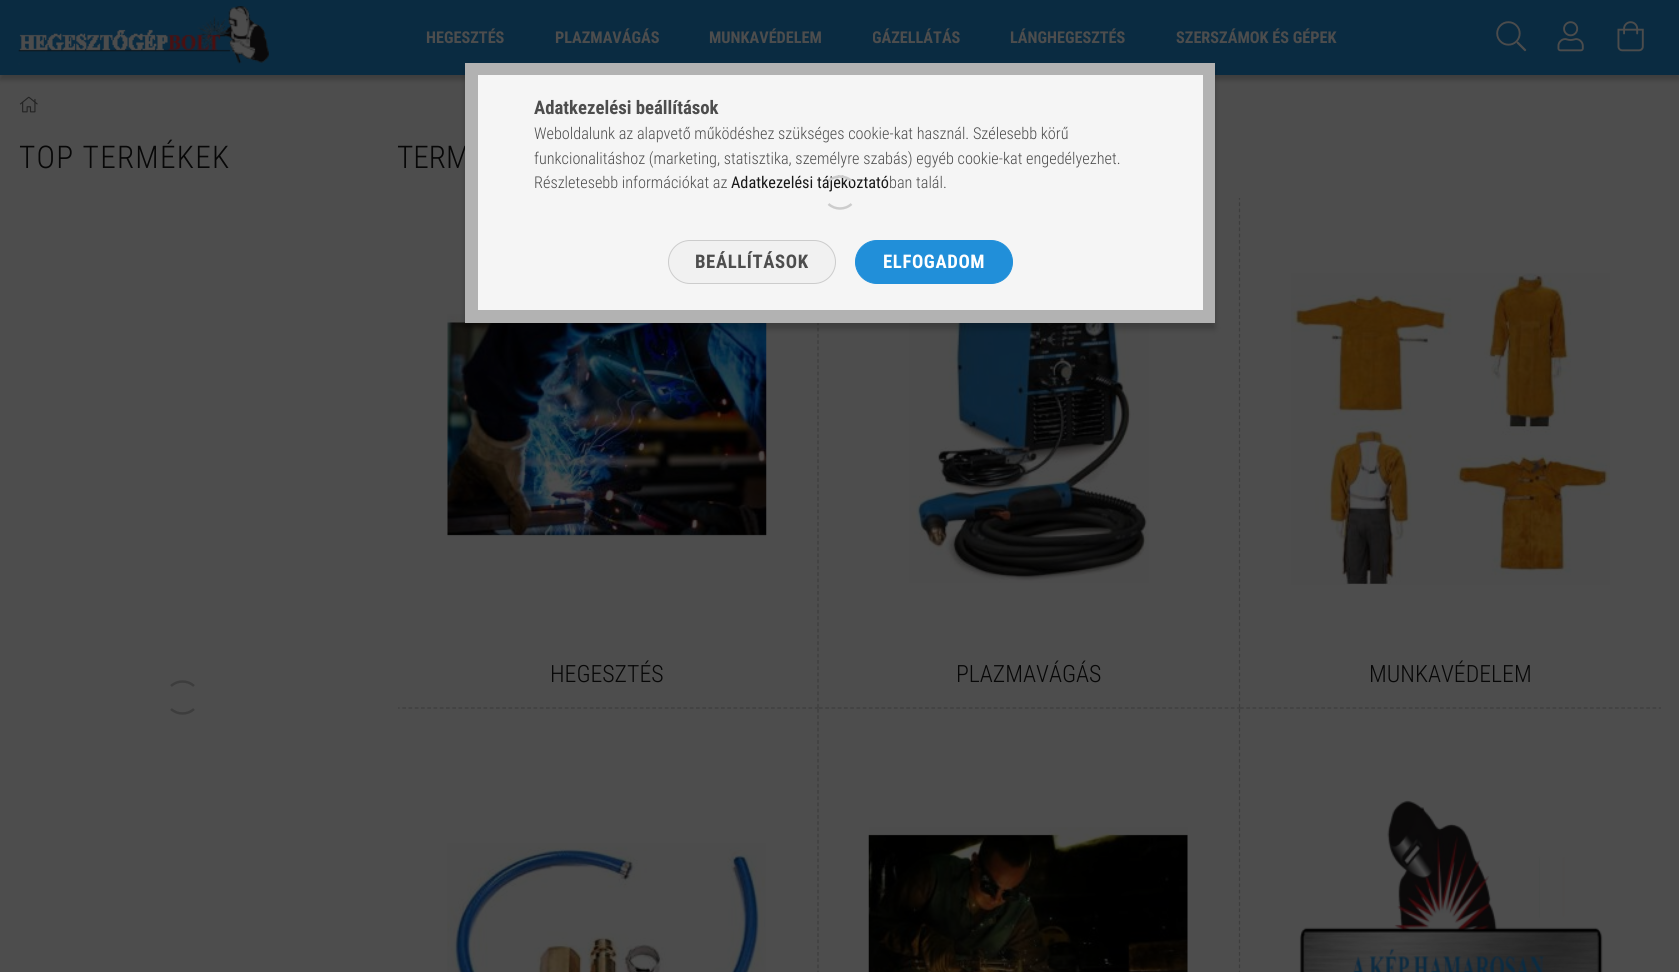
#include <cairo.h>
#include <math.h>
#include <stddef.h>

typedef struct { double x, y; const char *s; } line_t;

static void ink(cairo_t *ctx, unsigned color) {
    cairo_set_source_rgb(ctx, (color >> 16) / 255.0, (color >> 8 & 255) / 255.0, (color & 255) / 255.0);
}

static void write_spaced(cairo_t *ctx, double x, double y, const char *s, double letter, double word) {
    cairo_move_to(ctx, x, y);
    while (*s) {
        char ch[5] = {0};
        int n = 0;
        do ch[n++] = *s++; while ((*s & 0xC0) == 0x80);
        cairo_show_text(ctx, ch);
        cairo_rel_move_to(ctx, letter + word * (*ch == ' '), 0);
    }
}

static void round_path(cairo_t *ctx, double x, double y, double w, double h, double r) {
    cairo_new_sub_path(ctx);
    cairo_arc(ctx, x + w - r, y + h - r, r, 0, M_PI / 2);
    cairo_arc(ctx, x + r, y + h - r, r, M_PI / 2, M_PI);
    cairo_arc(ctx, x + r, y + r, r, M_PI, 1.5 * M_PI);
    cairo_arc(ctx, x + w - r, y + r, r, 1.5 * M_PI, 2 * M_PI);
    cairo_close_path(ctx);
}

static void blur_box(cairo_t *ctx, double x, double y, double w, double h, double r, double blur, double alpha) {
    cairo_push_group_with_content(ctx, CAIRO_CONTENT_ALPHA);
    cairo_set_operator(ctx, CAIRO_OPERATOR_SOURCE);
    for (int i = 15; i >= -15 && fmin(w, h) + blur * i / 3 > 0; i -= 2) {
        double e = blur * i / 6;
        cairo_set_source_rgba(ctx, 0, 0, 0, alpha * erfc((i - 1) / 8.5) / 2);
        round_path(ctx, x - e, y - e, w + 2 * e, h + 2 * e, fmax(0, fmin(r + e + blur * .6, fmin(w, h) / 2 + e)));
        cairo_fill(ctx);
    }
    cairo_pattern_t *soft = cairo_pop_group(ctx);
    cairo_mask(ctx, soft);
    cairo_pattern_destroy(soft);
}

static void paste(cairo_t *ctx, const char *path, double x, double y, double w, double h) {
    cairo_surface_t *image = cairo_image_surface_create_from_png(path);
    cairo_save(ctx);
    cairo_set_source_surface(ctx, image, x, y);
    cairo_rectangle(ctx, x, y, w, h);
    cairo_fill(ctx);
    cairo_restore(ctx);
    cairo_surface_destroy(image);
}

int main(void) {
    cairo_surface_t *surface = cairo_image_surface_create(CAIRO_FORMAT_RGB24, 1679, 972);
    cairo_t *ctx = cairo_create(surface);
    cairo_font_options_t *options = cairo_font_options_create();
    cairo_font_options_set_hint_metrics(options, CAIRO_HINT_METRICS_OFF);
    cairo_font_options_set_hint_style(options, CAIRO_HINT_STYLE_NONE);
    cairo_set_font_options(ctx, options);
    cairo_set_miter_limit(ctx, 4);
    ink(ctx, 0x4D4D4D);
    cairo_paint(ctx);
    ink(ctx, 0x000000);
    blur_box(ctx, 0, 5, 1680, 75, 0, 2.5, 0.2);
    ink(ctx, 0x0A2B41);
    cairo_rectangle(ctx, 0, 0, 1679, 75);
    cairo_fill(ctx);
    paste(ctx, "media/1.png", 18, 6, 251, 59);
    cairo_select_font_face(ctx, "Roboto Condensed", CAIRO_FONT_SLANT_NORMAL, CAIRO_FONT_WEIGHT_BOLD);
    cairo_set_font_size(ctx, 16.25);
    ink(ctx, 0x4D4D4D);
    {
        static const line_t items[] = {
            {426, 43, "HEGESZTÉS"},
            {555, 43, "PLAZMAVÁGÁS"},
            {709, 43, "MUNKAVÉDELEM"},
        };
        for (size_t i = 0; i < sizeof items / sizeof *items; i++) {
            cairo_move_to(ctx, items[i].x, items[i].y);
            cairo_show_text(ctx, items[i].s);
        }
    }
    cairo_save(ctx);
    cairo_rectangle(ctx, 873, 28, 87, 20);
    cairo_clip(ctx);
    cairo_move_to(ctx, 872, 43);
    cairo_show_text(ctx, "GÁZELLÁTÁS");
    cairo_restore(ctx);
    cairo_move_to(ctx, 1010, 43);
    cairo_show_text(ctx, "LÁNGHEGESZTÉS");
    cairo_move_to(ctx, 1176, 43);
    cairo_show_text(ctx, "SZERSZÁMOK ÉS GÉPEK");
    paste(ctx, "media/2.png", 1496, 21, 31, 31);
    paste(ctx, "media/3.png", 1557, 21, 27, 31);
    paste(ctx, "media/4.png", 1617, 21, 27, 31);
    paste(ctx, "media/5.png", 19, 96, 19, 17);
    cairo_select_font_face(ctx, "Roboto Condensed Light", CAIRO_FONT_SLANT_NORMAL, CAIRO_FONT_WEIGHT_NORMAL);
    cairo_set_font_size(ctx, 31.25);
    ink(ctx, 0x070707);
    write_spaced(ctx, 19, 168, "TOP TERMÉKEK", 1.25, 0);
    cairo_new_path(ctx);
    cairo_move_to(ctx, 171, 686);
    cairo_curve_to(ctx, 177.5, 680, 187.5, 680, 194, 686);
    cairo_move_to(ctx, 194, 709);
    cairo_curve_to(ctx, 187.5, 715, 177.5, 715, 171, 709);
    ink(ctx, 0x3D3D3D);
    cairo_set_line_width(ctx, 2.5);
    cairo_stroke(ctx);
    ink(ctx, 0x070707);
    cairo_move_to(ctx, 397, 168);
    cairo_show_text(ctx, "TERM");
    cairo_new_path(ctx);
    cairo_move_to(ctx, 818, 196);
    cairo_line_to(ctx, 818, 709);
    ink(ctx, 0x3D3D3D);
    cairo_set_line_width(ctx, 1.2);
    cairo_set_dash(ctx, (double[]){3.75, 2.52}, 2, 0);
    cairo_stroke(ctx);
    cairo_save(ctx);
    cairo_rectangle(ctx, 398, 198, 1263, 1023);
    cairo_clip(ctx);
    cairo_new_path(ctx);
    cairo_move_to(ctx, 396, 708);
    cairo_line_to(ctx, 819, 708);
    cairo_set_dash(ctx, (double[]){3.75, 2.5}, 2, 0);
    cairo_stroke(ctx);
    cairo_restore(ctx);
    paste(ctx, "media/6.png", 447, 314, 320, 223);
    cairo_set_font_size(ctx, 23.75);
    ink(ctx, 0x070707);
    cairo_move_to(ctx, 550, 682);
    cairo_show_text(ctx, "HEGESZTÉS");
    cairo_save(ctx);
    cairo_rectangle(ctx, 398, 198, 1263, 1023);
    cairo_clip(ctx);
    cairo_new_path(ctx);
    cairo_move_to(ctx, 1239.5, 196);
    cairo_line_to(ctx, 1239.5, 709);
    ink(ctx, 0x3D3D3D);
    cairo_stroke(ctx);
    cairo_restore(ctx);
    cairo_new_path(ctx);
    cairo_move_to(ctx, 819, 708);
    cairo_line_to(ctx, 1240, 708);
    ink(ctx, 0x3D3D3D);
    cairo_set_dash(ctx, (double[]){3.75, 2.49}, 2, 0);
    cairo_stroke(ctx);
    paste(ctx, "media/7.png", 909, 323, 240, 260);
    ink(ctx, 0x070707);
    cairo_move_to(ctx, 956, 682);
    cairo_show_text(ctx, "PLAZMAVÁGÁS");
    cairo_save(ctx);
    cairo_rectangle(ctx, 398, 198, 1263, 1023);
    cairo_clip(ctx);
    cairo_new_path(ctx);
    cairo_move_to(ctx, 1240, 708);
    cairo_line_to(ctx, 1662.5, 708);
    ink(ctx, 0x3D3D3D);
    cairo_set_dash(ctx, (double[]){3.75, 2.5}, 2, 0);
    cairo_stroke(ctx);
    cairo_restore(ctx);
    paste(ctx, "media/8.png", 1291, 273, 319, 312);
    cairo_move_to(ctx, 1369, 682);
    cairo_show_text(ctx, "MUNKAVÉDELEM");
    cairo_new_path(ctx);
    cairo_move_to(ctx, 818, 709);
    cairo_line_to(ctx, 818, 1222.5);
    ink(ctx, 0x3D3D3D);
    cairo_set_dash(ctx, (double[]){3.75, 2.48}, 2, 0);
    cairo_stroke(ctx);
    paste(ctx, "media/9.png", 447, 843, 319, 129);
    cairo_new_path(ctx);
    cairo_move_to(ctx, 1239.5, 709);
    cairo_line_to(ctx, 1239.5, 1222.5);
    cairo_stroke(ctx);
    paste(ctx, "media/10.png", 868, 827, 320, 145);
    paste(ctx, "media/11.png", 1299, 800, 304, 172);
    ink(ctx, 0x000000);
    blur_box(ctx, 465, 69, 750, 260, 0, 3, 0.2);
    cairo_rectangle(ctx, 471.5, 69.5, 737, 247);
    ink(ctx, 0xB2B2B2);
    cairo_set_line_width(ctx, 13);
    cairo_set_dash(ctx, NULL, 0, 0);
    cairo_stroke(ctx);
    ink(ctx, 0xF5F5F5);
    cairo_rectangle(ctx, 478, 75, 725, 235);
    cairo_fill(ctx);
    cairo_select_font_face(ctx, "Roboto Condensed", CAIRO_FONT_SLANT_NORMAL, CAIRO_FONT_WEIGHT_BOLD);
    cairo_set_font_size(ctx, 18.75);
    ink(ctx, 0x4D4D4D);
    cairo_move_to(ctx, 534, 114);
    cairo_show_text(ctx, "Adatkezelési beállítások");
    cairo_select_font_face(ctx, "Roboto Condensed Light", CAIRO_FONT_SLANT_NORMAL, CAIRO_FONT_WEIGHT_NORMAL);
    cairo_set_font_size(ctx, 16.25);
    {
        static const line_t items[] = {
            {534, 139, "Weboldalunk az alapvető működéshez szükséges cookie-kat használ. Szélesebb körű"},
            {534, 164, "funkcionalitáshoz (marketing, statisztika, személyre szabás) egyéb cookie-kat engedélyezhet."},
            {534, 188, "Részletesebb információkat az"},
        };
        for (size_t i = 0; i < sizeof items / sizeof *items; i++) {
            cairo_move_to(ctx, items[i].x, items[i].y);
            cairo_show_text(ctx, items[i].s);
        }
    }
    cairo_select_font_face(ctx, "Roboto Condensed", CAIRO_FONT_SLANT_NORMAL, CAIRO_FONT_WEIGHT_NORMAL);
    ink(ctx, 0x181818);
    cairo_move_to(ctx, 731, 188);
    cairo_show_text(ctx, "Adatkezelési tájékoztató");
    cairo_select_font_face(ctx, "Roboto Condensed Light", CAIRO_FONT_SLANT_NORMAL, CAIRO_FONT_WEIGHT_NORMAL);
    ink(ctx, 0x4D4D4D);
    cairo_move_to(ctx, 889, 188);
    cairo_show_text(ctx, "ban talál.");
    ink(ctx, 0xF1F1F1);
    round_path(ctx, 668.5, 240.5, 167, 43, 21.5);
    cairo_fill_preserve(ctx);
    ink(ctx, 0xCCCCCC);
    cairo_set_line_width(ctx, 1);
    cairo_stroke(ctx);
    cairo_select_font_face(ctx, "Roboto Condensed", CAIRO_FONT_SLANT_NORMAL, CAIRO_FONT_WEIGHT_BOLD);
    cairo_set_font_size(ctx, 18.75);
    ink(ctx, 0x4D4D4D);
    write_spaced(ctx, 695, 268, "BEÁLLÍTÁSOK", 0.6, 0);
    ink(ctx, 0x218FD9);
    round_path(ctx, 855.5, 240.5, 157, 43, 21.5);
    cairo_fill_preserve(ctx);
    cairo_stroke(ctx);
    ink(ctx, 0xFFFFFF);
    write_spaced(ctx, 883, 268, "ELFOGADOM", 0.6, 0);
    cairo_new_path(ctx);
    cairo_move_to(ctx, 828.5, 181);
    cairo_curve_to(ctx, 835, 175, 845, 175, 851.5, 181);
    cairo_move_to(ctx, 851.5, 204);
    cairo_curve_to(ctx, 845, 210, 835, 210, 828.5, 204);
    ink(ctx, 0xCCCCCC);
    cairo_set_line_width(ctx, 2.5);
    cairo_stroke(ctx);
    cairo_surface_write_to_png(surface, "image.png");
    cairo_font_options_destroy(options);
    cairo_destroy(ctx);
    cairo_surface_destroy(surface);
    return 0;
}
